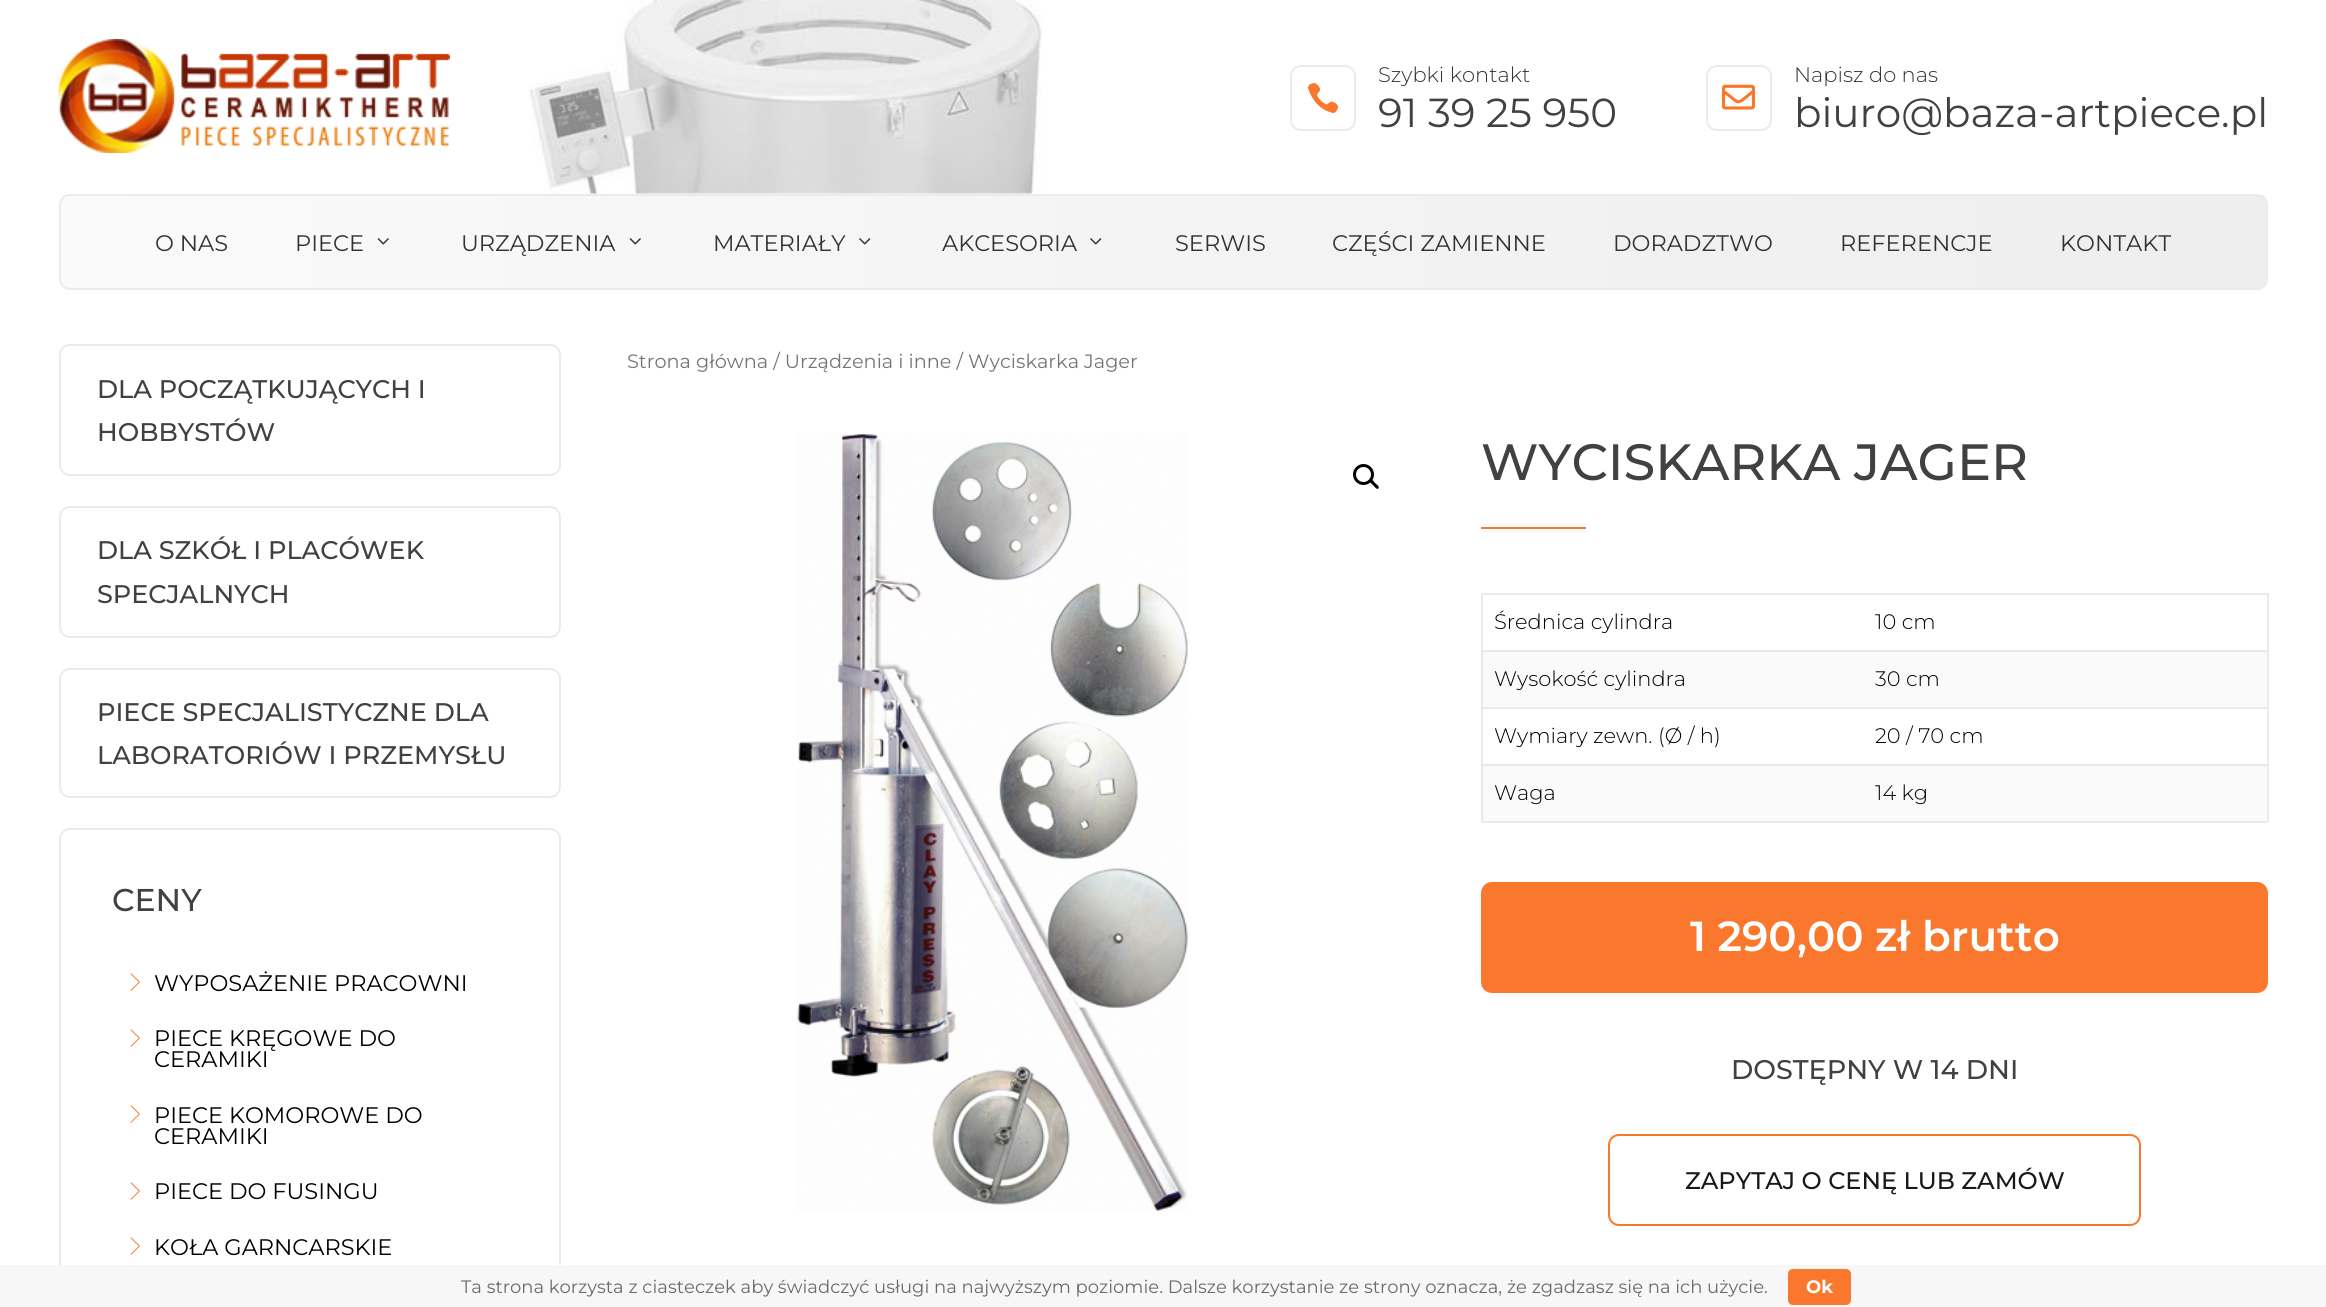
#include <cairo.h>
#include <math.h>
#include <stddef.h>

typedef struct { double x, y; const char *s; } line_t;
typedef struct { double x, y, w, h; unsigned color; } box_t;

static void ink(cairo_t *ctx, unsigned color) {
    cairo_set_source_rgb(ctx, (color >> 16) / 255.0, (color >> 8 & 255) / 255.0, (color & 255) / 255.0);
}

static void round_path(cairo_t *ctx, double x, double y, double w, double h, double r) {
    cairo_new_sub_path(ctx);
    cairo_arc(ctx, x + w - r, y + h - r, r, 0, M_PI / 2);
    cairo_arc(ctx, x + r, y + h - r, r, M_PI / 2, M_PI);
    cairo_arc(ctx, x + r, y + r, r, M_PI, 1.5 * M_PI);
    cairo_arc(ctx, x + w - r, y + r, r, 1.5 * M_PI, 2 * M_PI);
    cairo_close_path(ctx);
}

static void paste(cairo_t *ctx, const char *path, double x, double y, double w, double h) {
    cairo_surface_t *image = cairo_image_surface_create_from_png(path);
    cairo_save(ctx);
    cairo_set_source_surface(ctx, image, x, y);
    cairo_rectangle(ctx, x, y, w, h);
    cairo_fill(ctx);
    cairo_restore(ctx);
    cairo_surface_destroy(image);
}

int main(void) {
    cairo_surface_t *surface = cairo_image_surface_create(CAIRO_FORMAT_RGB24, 2326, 1307);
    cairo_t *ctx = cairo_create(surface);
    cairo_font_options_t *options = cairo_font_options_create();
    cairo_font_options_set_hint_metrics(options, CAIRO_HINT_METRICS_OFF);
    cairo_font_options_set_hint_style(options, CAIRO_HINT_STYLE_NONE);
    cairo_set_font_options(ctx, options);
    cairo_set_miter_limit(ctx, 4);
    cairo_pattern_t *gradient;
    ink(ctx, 0xFFFFFF);
    cairo_paint(ctx);
    paste(ctx, "media/1.png", 529, 0, 513, 194);
    paste(ctx, "media/2.png", 58, 39, 392, 114);
    round_path(ctx, 1291, 66, 64, 64, 10);
    ink(ctx, 0xEBEBEB);
    cairo_stroke(ctx);
    paste(ctx, "media/3.png", 1307, 82, 32, 32);
    cairo_select_font_face(ctx, "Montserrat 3 Thin", CAIRO_FONT_SLANT_NORMAL, CAIRO_FONT_WEIGHT_NORMAL);
    cairo_set_font_size(ctx, 21);
    ink(ctx, 0x333333);
    cairo_move_to(ctx, 1378, 82);
    cairo_show_text(ctx, "Szybki kontakt");
    cairo_select_font_face(ctx, "Montserrat Thin", CAIRO_FONT_SLANT_NORMAL, CAIRO_FONT_WEIGHT_NORMAL);
    cairo_set_font_size(ctx, 40.5);
    ink(ctx, 0x414042);
    cairo_move_to(ctx, 1378, 127);
    cairo_show_text(ctx, "91 39 25 950");
    round_path(ctx, 1707, 66, 64, 64, 10);
    ink(ctx, 0xEBEBEB);
    cairo_stroke(ctx);
    paste(ctx, "media/4.png", 1722, 84, 33, 26);
    cairo_select_font_face(ctx, "Montserrat 3 Thin", CAIRO_FONT_SLANT_NORMAL, CAIRO_FONT_WEIGHT_NORMAL);
    cairo_set_font_size(ctx, 21);
    ink(ctx, 0x333333);
    cairo_move_to(ctx, 1794, 82);
    cairo_show_text(ctx, "Napisz do nas");
    cairo_select_font_face(ctx, "Montserrat Thin", CAIRO_FONT_SLANT_NORMAL, CAIRO_FONT_WEIGHT_NORMAL);
    cairo_set_font_size(ctx, 40.5);
    ink(ctx, 0x414042);
    cairo_move_to(ctx, 1794, 127);
    cairo_show_text(ctx, "biuro@baza-artpiece.pl");
    cairo_save(ctx);
    round_path(ctx, 59, 194, 2209, 96, 11);
    cairo_clip(ctx);
    gradient = cairo_pattern_create_linear(60, 242, 2267, 241);
    cairo_pattern_add_color_stop_rgba(gradient, 0, 0.98, 0.98, 0.98, 1);
    cairo_pattern_add_color_stop_rgba(gradient, 1, 0.933, 0.933, 0.933, 1);
    cairo_set_source(ctx, gradient);
    cairo_pattern_destroy(gradient);
    cairo_rectangle(ctx, 60, 195, 2207, 93);
    cairo_fill(ctx);
    cairo_restore(ctx);
    round_path(ctx, 60, 195, 2207, 94, 10);
    ink(ctx, 0xEBEBEB);
    cairo_stroke(ctx);
    cairo_set_font_size(ctx, 22.5);
    ink(ctx, 0x333333);
    cairo_move_to(ctx, 155, 251);
    cairo_show_text(ctx, "O NAS");
    cairo_move_to(ctx, 295, 251);
    cairo_show_text(ctx, "PIECE");
    paste(ctx, "media/5.png", 377, 238, 12, 7);
    cairo_move_to(ctx, 461, 251);
    cairo_show_text(ctx, "URZĄDZENIA");
    paste(ctx, "media/6.png", 629, 238, 12, 7);
    cairo_move_to(ctx, 713, 251);
    cairo_show_text(ctx, "MATERIAŁY");
    paste(ctx, "media/7.png", 859, 238, 12, 7);
    cairo_move_to(ctx, 942, 251);
    cairo_show_text(ctx, "AKCESORIA");
    paste(ctx, "media/8.png", 1090, 238, 12, 7);
    {
        static const line_t items[] = {
            {1175, 251, "SERWIS"},
            {1332, 251, "CZĘŚCI ZAMIENNE"},
            {1613, 251, "DORADZTWO"},
            {1840, 251, "REFERENCJE"},
            {2060, 251, "KONTAKT"},
        };
        for (size_t i = 0; i < sizeof items / sizeof *items; i++) {
            cairo_move_to(ctx, items[i].x, items[i].y);
            cairo_show_text(ctx, items[i].s);
        }
    }
    ink(ctx, 0xFAFAFA);
    cairo_rectangle(ctx, 1483, 766, 784, 55);
    cairo_fill(ctx);
    cairo_rectangle(ctx, 1483, 652, 784, 55);
    cairo_fill(ctx);
    round_path(ctx, 60, 345, 500, 130, 10);
    ink(ctx, 0xEBEBEB);
    cairo_stroke(ctx);
    cairo_select_font_face(ctx, "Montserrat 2 Thin", CAIRO_FONT_SLANT_NORMAL, CAIRO_FONT_WEIGHT_NORMAL);
    cairo_set_font_size(ctx, 25.5);
    ink(ctx, 0x414042);
    cairo_move_to(ctx, 97, 398);
    cairo_show_text(ctx, "DLA POCZĄTKUJĄCYCH I");
    cairo_move_to(ctx, 97, 441);
    cairo_show_text(ctx, "HOBBYSTÓW");
    round_path(ctx, 60, 507, 500, 130, 10);
    ink(ctx, 0xEBEBEB);
    cairo_stroke(ctx);
    ink(ctx, 0x414042);
    cairo_move_to(ctx, 97, 559);
    cairo_show_text(ctx, "DLA SZKÓŁ I PLACÓWEK");
    cairo_move_to(ctx, 97, 603);
    cairo_show_text(ctx, "SPECJALNYCH");
    round_path(ctx, 60, 669, 500, 128, 10);
    ink(ctx, 0xEBEBEB);
    cairo_stroke(ctx);
    ink(ctx, 0x414042);
    cairo_move_to(ctx, 97, 721);
    cairo_show_text(ctx, "PIECE SPECJALISTYCZNE DLA");
    cairo_move_to(ctx, 97, 764);
    cairo_show_text(ctx, "LABORATORIÓW I PRZEMYSŁU");
    round_path(ctx, 60, 829, 500, 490, 10);
    ink(ctx, 0xEBEBEB);
    cairo_stroke(ctx);
    cairo_set_font_size(ctx, 31.5);
    ink(ctx, 0x414042);
    cairo_move_to(ctx, 112, 911);
    cairo_show_text(ctx, "CENY");
    cairo_select_font_face(ctx, "Liberation Sans", CAIRO_FONT_SLANT_NORMAL, CAIRO_FONT_WEIGHT_NORMAL);
    cairo_set_font_size(ctx, 21);
    ink(ctx, 0xFA782D);
    cairo_save(ctx);
    cairo_translate(ctx, 143, 985);
    cairo_rotate(ctx, -135 * M_PI / 180);
    cairo_move_to(ctx, 0, 0);
    cairo_show_text(ctx, "∟");
    cairo_restore(ctx);
    cairo_select_font_face(ctx, "Montserrat Thin", CAIRO_FONT_SLANT_NORMAL, CAIRO_FONT_WEIGHT_NORMAL);
    cairo_set_font_size(ctx, 22.5);
    ink(ctx, 0x000000);
    cairo_move_to(ctx, 154, 991);
    cairo_show_text(ctx, "WYPOSAŻENIE PRACOWNI");
    cairo_select_font_face(ctx, "Liberation Sans", CAIRO_FONT_SLANT_NORMAL, CAIRO_FONT_WEIGHT_NORMAL);
    cairo_set_font_size(ctx, 21);
    ink(ctx, 0xFA782D);
    cairo_save(ctx);
    cairo_translate(ctx, 143, 1041);
    cairo_rotate(ctx, -135 * M_PI / 180);
    cairo_move_to(ctx, 0, 0);
    cairo_show_text(ctx, "∟");
    cairo_restore(ctx);
    cairo_select_font_face(ctx, "Montserrat Thin", CAIRO_FONT_SLANT_NORMAL, CAIRO_FONT_WEIGHT_NORMAL);
    cairo_set_font_size(ctx, 22.5);
    ink(ctx, 0x000000);
    cairo_move_to(ctx, 154, 1046);
    cairo_show_text(ctx, "PIECE KRĘGOWE DO");
    cairo_move_to(ctx, 154, 1067);
    cairo_show_text(ctx, "CERAMIKI");
    cairo_select_font_face(ctx, "Liberation Sans", CAIRO_FONT_SLANT_NORMAL, CAIRO_FONT_WEIGHT_NORMAL);
    cairo_set_font_size(ctx, 21);
    ink(ctx, 0xFA782D);
    cairo_save(ctx);
    cairo_translate(ctx, 143, 1117);
    cairo_rotate(ctx, -135 * M_PI / 180);
    cairo_move_to(ctx, 0, 0);
    cairo_show_text(ctx, "∟");
    cairo_restore(ctx);
    cairo_select_font_face(ctx, "Montserrat Thin", CAIRO_FONT_SLANT_NORMAL, CAIRO_FONT_WEIGHT_NORMAL);
    cairo_set_font_size(ctx, 22.5);
    ink(ctx, 0x000000);
    cairo_move_to(ctx, 154, 1123);
    cairo_show_text(ctx, "PIECE KOMOROWE DO");
    cairo_move_to(ctx, 154, 1144);
    cairo_show_text(ctx, "CERAMIKI");
    cairo_select_font_face(ctx, "Liberation Sans", CAIRO_FONT_SLANT_NORMAL, CAIRO_FONT_WEIGHT_NORMAL);
    cairo_set_font_size(ctx, 21);
    ink(ctx, 0xFA782D);
    cairo_save(ctx);
    cairo_translate(ctx, 143, 1194);
    cairo_rotate(ctx, -135 * M_PI / 180);
    cairo_move_to(ctx, 0, 0);
    cairo_show_text(ctx, "∟");
    cairo_restore(ctx);
    cairo_select_font_face(ctx, "Montserrat Thin", CAIRO_FONT_SLANT_NORMAL, CAIRO_FONT_WEIGHT_NORMAL);
    cairo_set_font_size(ctx, 22.5);
    ink(ctx, 0x000000);
    cairo_move_to(ctx, 154, 1199);
    cairo_show_text(ctx, "PIECE DO FUSINGU");
    cairo_select_font_face(ctx, "Liberation Sans", CAIRO_FONT_SLANT_NORMAL, CAIRO_FONT_WEIGHT_NORMAL);
    cairo_set_font_size(ctx, 21);
    ink(ctx, 0xFA782D);
    cairo_save(ctx);
    cairo_translate(ctx, 143, 1249);
    cairo_rotate(ctx, -135 * M_PI / 180);
    cairo_move_to(ctx, 0, 0);
    cairo_show_text(ctx, "∟");
    cairo_restore(ctx);
    cairo_select_font_face(ctx, "Montserrat Thin", CAIRO_FONT_SLANT_NORMAL, CAIRO_FONT_WEIGHT_NORMAL);
    cairo_set_font_size(ctx, 22.5);
    ink(ctx, 0x000000);
    cairo_move_to(ctx, 154, 1255);
    cairo_show_text(ctx, "KOŁA GARNCARSKIE");
    cairo_set_font_size(ctx, 19.3);
    ink(ctx, 0x767676);
    cairo_move_to(ctx, 627, 368);
    cairo_show_text(ctx, "Strona główna / Urządzenia i inne / Wyciskarka Jager");
    paste(ctx, "media/9.png", 797, 433, 391, 779);
    cairo_arc(ctx, 1363.5, 474.5, 9, 0, 2 * M_PI);
    ink(ctx, 0x000000);
    cairo_set_line_width(ctx, 3);
    cairo_stroke(ctx);
    cairo_new_path(ctx);
    cairo_move_to(ctx, 1370, 480);
    cairo_curve_to(ctx, 1371.5, 478, 1374.5, 482, 1375, 483);
    cairo_curve_to(ctx, 1376, 484, 1380, 486.5, 1378.5, 488.5);
    cairo_curve_to(ctx, 1376.5, 490, 1374, 486, 1373, 485);
    cairo_curve_to(ctx, 1372, 484, 1368, 481.5, 1370, 480);
    cairo_close_path(ctx);
    cairo_fill(ctx);
    cairo_select_font_face(ctx, "Montserrat 2 Thin", CAIRO_FONT_SLANT_NORMAL, CAIRO_FONT_WEIGHT_NORMAL);
    cairo_set_font_size(ctx, 51);
    ink(ctx, 0x414042);
    cairo_move_to(ctx, 1481, 480);
    cairo_show_text(ctx, "WYCISKARKA JAGER");
    {
        static const box_t items[] = {
            {1481, 527, 105, 2, 0xFA782D},
            {1481, 593, 787, 2, 0xEBEBEB},
            {2267, 593, 2, 229, 0xEBEBEB},
            {1481, 593, 2, 229, 0xEBEBEB},
            {1482, 765, 1, 56, 0xE6E6E6},
            {1482, 651, 1, 56, 0xE6E6E6},
            {1482, 650, 785, 1, 0xEBEBEB},
            {1482, 651, 785, 1, 0xE6E6E6},
        };
        for (size_t i = 0; i < sizeof items / sizeof *items; i++) {
            ink(ctx, items[i].color);
            cairo_rectangle(ctx, items[i].x, items[i].y, items[i].w, items[i].h);
            cairo_fill(ctx);
        }
    }
    cairo_select_font_face(ctx, "Montserrat 3 Thin", CAIRO_FONT_SLANT_NORMAL, CAIRO_FONT_WEIGHT_NORMAL);
    cairo_set_font_size(ctx, 21);
    ink(ctx, 0x000000);
    cairo_move_to(ctx, 1494, 629);
    cairo_show_text(ctx, "Średnica cylindra");
    cairo_move_to(ctx, 1875, 629);
    cairo_show_text(ctx, "10 cm");
    ink(ctx, 0xEBEBEB);
    cairo_rectangle(ctx, 1482, 707, 785, 2);
    cairo_fill(ctx);
    ink(ctx, 0x000000);
    cairo_move_to(ctx, 1494, 686);
    cairo_show_text(ctx, "Wysokość cylindra");
    cairo_move_to(ctx, 1875, 686);
    cairo_show_text(ctx, "30 cm");
    ink(ctx, 0xEBEBEB);
    cairo_rectangle(ctx, 1482, 764, 785, 1);
    cairo_fill(ctx);
    ink(ctx, 0xE6E6E6);
    cairo_rectangle(ctx, 1482, 765, 785, 1);
    cairo_fill(ctx);
    ink(ctx, 0x000000);
    cairo_move_to(ctx, 1494, 743);
    cairo_show_text(ctx, "Wymiary zewn. (Ø / h)");
    cairo_move_to(ctx, 1875, 743);
    cairo_show_text(ctx, "20 / 70 cm");
    ink(ctx, 0xEBEBEB);
    cairo_rectangle(ctx, 1482, 821, 785, 2);
    cairo_fill(ctx);
    ink(ctx, 0x000000);
    cairo_move_to(ctx, 1494, 800);
    cairo_show_text(ctx, "Waga");
    cairo_move_to(ctx, 1875, 800);
    cairo_show_text(ctx, "14 kg");
    ink(ctx, 0xFA782D);
    round_path(ctx, 1481, 882, 787, 111, 11);
    cairo_fill(ctx);
    cairo_select_font_face(ctx, "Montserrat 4 Thin", CAIRO_FONT_SLANT_NORMAL, CAIRO_FONT_WEIGHT_NORMAL);
    cairo_set_font_size(ctx, 42);
    ink(ctx, 0xFFFFFF);
    cairo_move_to(ctx, 1690, 951);
    cairo_show_text(ctx, "1 290,00 zł brutto");
    cairo_select_font_face(ctx, "Montserrat 2 Thin", CAIRO_FONT_SLANT_NORMAL, CAIRO_FONT_WEIGHT_NORMAL);
    cairo_set_font_size(ctx, 27);
    ink(ctx, 0x414042);
    cairo_move_to(ctx, 1731, 1079);
    cairo_show_text(ctx, "DOSTĘPNY W 14 DNI");
    round_path(ctx, 1609, 1135, 531, 90, 10);
    ink(ctx, 0xFA782D);
    cairo_set_line_width(ctx, 2);
    cairo_stroke(ctx);
    cairo_set_font_size(ctx, 24);
    ink(ctx, 0x191919);
    cairo_move_to(ctx, 1685, 1189);
    cairo_show_text(ctx, "ZAPYTAJ O CENĘ LUB ZAMÓW");
    ink(ctx, 0xF7F7F7);
    cairo_rectangle(ctx, 0, 1265, 2326, 42);
    cairo_fill(ctx);
    cairo_select_font_face(ctx, "Montserrat Thin", CAIRO_FONT_SLANT_NORMAL, CAIRO_FONT_WEIGHT_NORMAL);
    cairo_set_font_size(ctx, 18);
    ink(ctx, 0x6B6B6B);
    cairo_move_to(ctx, 461, 1293);
    cairo_show_text(ctx, "Ta strona korzysta z ciasteczek aby świadczyć usługi na najwyższym poziomie. Dalsze korzystanie ze strony oznacza, że zgadzasz się na ich użycie.");
    ink(ctx, 0xFA782D);
    round_path(ctx, 1788, 1269, 63, 36, 5);
    cairo_fill(ctx);
    cairo_select_font_face(ctx, "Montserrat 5 Thin", CAIRO_FONT_SLANT_NORMAL, CAIRO_FONT_WEIGHT_NORMAL);
    ink(ctx, 0xFFFFFF);
    cairo_move_to(ctx, 1806, 1293);
    cairo_show_text(ctx, "Ok");
    cairo_surface_write_to_png(surface, "image.png");
    cairo_font_options_destroy(options);
    cairo_destroy(ctx);
    cairo_surface_destroy(surface);
    return 0;
}
